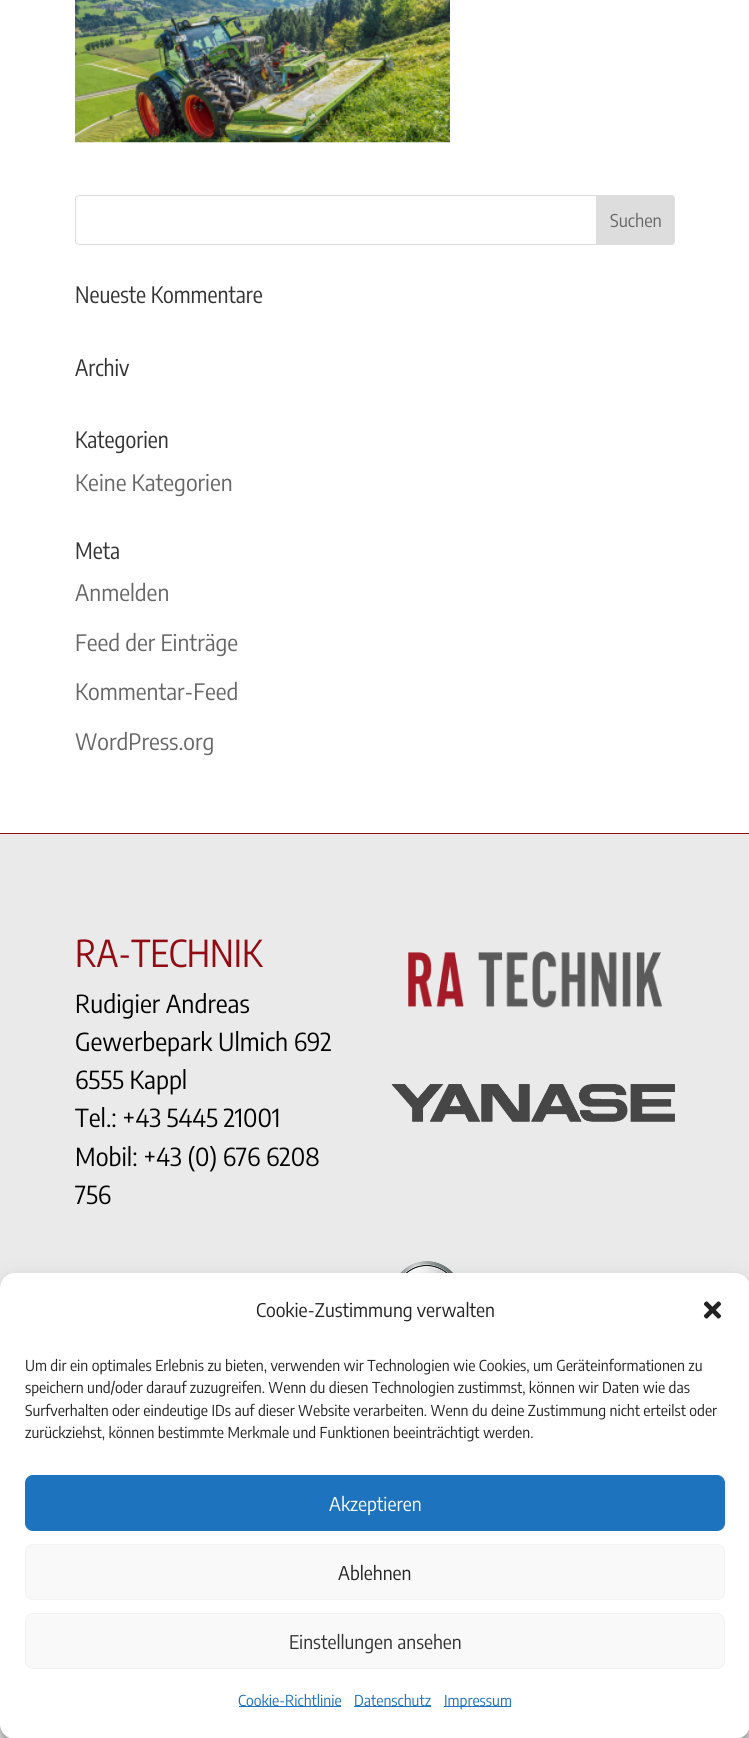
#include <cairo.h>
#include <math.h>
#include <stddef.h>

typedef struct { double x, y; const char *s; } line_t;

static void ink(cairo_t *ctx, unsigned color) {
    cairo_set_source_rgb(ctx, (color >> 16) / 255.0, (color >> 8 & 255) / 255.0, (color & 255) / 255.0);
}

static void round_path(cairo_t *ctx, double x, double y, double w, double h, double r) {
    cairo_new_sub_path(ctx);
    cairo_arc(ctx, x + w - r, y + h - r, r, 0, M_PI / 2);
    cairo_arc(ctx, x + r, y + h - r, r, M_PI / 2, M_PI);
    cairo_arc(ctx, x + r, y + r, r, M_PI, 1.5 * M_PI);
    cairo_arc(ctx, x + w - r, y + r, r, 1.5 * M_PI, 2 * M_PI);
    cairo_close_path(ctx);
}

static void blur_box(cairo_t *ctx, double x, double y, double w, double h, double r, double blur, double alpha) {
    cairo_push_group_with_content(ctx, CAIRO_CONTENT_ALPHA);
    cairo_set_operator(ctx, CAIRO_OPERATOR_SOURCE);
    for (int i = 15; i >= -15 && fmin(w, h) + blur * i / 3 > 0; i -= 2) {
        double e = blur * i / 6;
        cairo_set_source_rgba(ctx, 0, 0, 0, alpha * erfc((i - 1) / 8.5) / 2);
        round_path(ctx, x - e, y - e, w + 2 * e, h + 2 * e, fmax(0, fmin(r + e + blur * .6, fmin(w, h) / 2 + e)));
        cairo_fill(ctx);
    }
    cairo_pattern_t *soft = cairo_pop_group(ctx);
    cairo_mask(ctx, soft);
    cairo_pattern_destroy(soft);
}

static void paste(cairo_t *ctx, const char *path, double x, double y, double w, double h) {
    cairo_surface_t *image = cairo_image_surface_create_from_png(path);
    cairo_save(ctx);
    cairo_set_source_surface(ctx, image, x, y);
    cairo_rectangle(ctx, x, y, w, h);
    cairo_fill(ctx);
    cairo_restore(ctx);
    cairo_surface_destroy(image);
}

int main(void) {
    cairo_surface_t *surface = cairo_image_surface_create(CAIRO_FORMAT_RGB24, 749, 1738);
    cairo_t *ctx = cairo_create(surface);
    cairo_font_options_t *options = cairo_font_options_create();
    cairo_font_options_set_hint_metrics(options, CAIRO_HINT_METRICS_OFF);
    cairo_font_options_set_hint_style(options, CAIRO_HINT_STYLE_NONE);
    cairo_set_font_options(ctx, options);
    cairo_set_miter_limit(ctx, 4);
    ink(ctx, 0xFFFFFF);
    cairo_paint(ctx);
    paste(ctx, "media/1.png", 75, 0, 375, 143);
    round_path(ctx, 75.5, 195.5, 599, 49, 3.5);
    ink(ctx, 0xDDDDDD);
    cairo_set_line_width(ctx, 1);
    cairo_stroke(ctx);
    cairo_new_path(ctx);
    cairo_move_to(ctx, 596.5, 195.5);
    cairo_line_to(ctx, 671, 195.5);
    cairo_curve_to(ctx, 673, 195.5, 674.5, 197, 674.5, 199);
    cairo_line_to(ctx, 674.5, 241);
    cairo_curve_to(ctx, 674.5, 243, 673, 244.5, 671, 244.5);
    cairo_line_to(ctx, 596.5, 244.5);
    cairo_close_path(ctx);
    cairo_fill_preserve(ctx);
    cairo_stroke(ctx);
    cairo_select_font_face(ctx, "Encode Sans Semi Condensed", CAIRO_FONT_SLANT_NORMAL, CAIRO_FONT_WEIGHT_NORMAL);
    cairo_set_font_size(ctx, 17.5);
    ink(ctx, 0x666666);
    cairo_move_to(ctx, 610, 227);
    cairo_show_text(ctx, "Suchen");
    cairo_select_font_face(ctx, "Encode Sans Condensed", CAIRO_FONT_SLANT_NORMAL, CAIRO_FONT_WEIGHT_NORMAL);
    cairo_set_font_size(ctx, 22.5);
    ink(ctx, 0x333333);
    {
        static const line_t items[] = {
            {75, 303, "Neueste Kommentare"},
            {75, 376, "Archiv"},
            {75, 448, "Kategorien"},
        };
        for (size_t i = 0; i < sizeof items / sizeof *items; i++) {
            cairo_move_to(ctx, items[i].x, items[i].y);
            cairo_show_text(ctx, items[i].s);
        }
    }
    cairo_select_font_face(ctx, "Encode Sans Semi Condensed", CAIRO_FONT_SLANT_NORMAL, CAIRO_FONT_WEIGHT_NORMAL);
    ink(ctx, 0x666666);
    cairo_move_to(ctx, 75, 491);
    cairo_show_text(ctx, "Keine Kategorien");
    cairo_select_font_face(ctx, "Encode Sans Condensed", CAIRO_FONT_SLANT_NORMAL, CAIRO_FONT_WEIGHT_NORMAL);
    ink(ctx, 0x333333);
    cairo_move_to(ctx, 75, 559);
    cairo_show_text(ctx, "Meta");
    cairo_select_font_face(ctx, "Encode Sans Semi Condensed", CAIRO_FONT_SLANT_NORMAL, CAIRO_FONT_WEIGHT_NORMAL);
    ink(ctx, 0x666666);
    {
        static const line_t items[] = {
            {75, 601, "Anmelden"},
            {75, 651, "Feed der Einträge"},
            {75, 700, "Kommentar-Feed"},
            {75, 750, "WordPress.org"},
        };
        for (size_t i = 0; i < sizeof items / sizeof *items; i++) {
            cairo_move_to(ctx, items[i].x, items[i].y);
            cairo_show_text(ctx, items[i].s);
        }
    }
    ink(ctx, 0xEAEAEA);
    cairo_rectangle(ctx, 0, 834, 749, 904);
    cairo_fill(ctx);
    ink(ctx, 0x920B12);
    cairo_rectangle(ctx, 0, 833, 749, 1);
    cairo_fill(ctx);
    cairo_select_font_face(ctx, "Encode Sans Condensed", CAIRO_FONT_SLANT_NORMAL, CAIRO_FONT_WEIGHT_NORMAL);
    cairo_set_font_size(ctx, 37);
    cairo_move_to(ctx, 75, 967);
    cairo_show_text(ctx, "RA-TECHNIK");
    cairo_select_font_face(ctx, "Encode Sans Semi Condensed", CAIRO_FONT_SLANT_NORMAL, CAIRO_FONT_WEIGHT_NORMAL);
    cairo_set_font_size(ctx, 24.75);
    ink(ctx, 0x000000);
    {
        static const line_t items[] = {
            {75, 1013, "Rudigier Andreas"},
            {75, 1051, "Gewerbepark Ulmich 692"},
            {75, 1089, "6555 Kappl"},
            {75, 1127, "Tel.: +43 5445 21001"},
            {75, 1166, "Mobil: +43 (0) 676 6208"},
            {75, 1204, "756"},
        };
        for (size_t i = 0; i < sizeof items / sizeof *items; i++) {
            cairo_move_to(ctx, items[i].x, items[i].y);
            cairo_show_text(ctx, items[i].s);
        }
    }
    paste(ctx, "media/2.png", 408, 951, 255, 57);
    paste(ctx, "media/3.png", 391, 1084, 284, 38);
    paste(ctx, "media/4.png", 400, 1261, 53, 12);
    ink(ctx, 0x000000);
    blur_box(ctx, 0, 1280, 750, 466, 15, 4, 0.23);
    blur_box(ctx, 0, 1285, 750, 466, 15, 12.5, 0.19);
    ink(ctx, 0xFFFFFF);
    round_path(ctx, 0, 1273, 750, 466, 15);
    cairo_fill(ctx);
    cairo_set_font_size(ctx, 18.75);
    ink(ctx, 0x222222);
    cairo_move_to(ctx, 256, 1317);
    cairo_show_text(ctx, "Cookie-Zustimmung verwalten");
    paste(ctx, "media/5.png", 703, 1301, 19, 18);
    cairo_set_font_size(ctx, 15);
    {
        static const line_t items[] = {
            {25, 1371, "Um dir ein optimales Erlebnis zu bieten, verwenden wir Technologien wie Cookies, um Geräteinformationen zu"},
            {25, 1393, "speichern und/oder darauf zuzugreifen. Wenn du diesen Technologien zustimmst, können wir Daten wie das"},
            {25, 1416, "Surfverhalten oder eindeutige IDs auf dieser Website verarbeiten. Wenn du deine Zustimmung nicht erteilst oder"},
            {25, 1438, "zurückziehst, können bestimmte Merkmale und Funktionen beeinträchtigt werden."},
        };
        for (size_t i = 0; i < sizeof items / sizeof *items; i++) {
            cairo_move_to(ctx, items[i].x, items[i].y);
            cairo_show_text(ctx, items[i].s);
        }
    }
    ink(ctx, 0x1E73BE);
    round_path(ctx, 25.5, 1475.5, 699, 55, 7.5);
    cairo_fill_preserve(ctx);
    cairo_stroke(ctx);
    cairo_set_font_size(ctx, 18.75);
    ink(ctx, 0xFFFFFF);
    cairo_move_to(ctx, 329, 1511);
    cairo_show_text(ctx, "Akzeptieren");
    ink(ctx, 0xF9F9F9);
    round_path(ctx, 25.5, 1544.5, 699, 55, 7.5);
    cairo_fill_preserve(ctx);
    ink(ctx, 0xF2F2F2);
    cairo_stroke(ctx);
    ink(ctx, 0x222222);
    cairo_move_to(ctx, 338, 1580);
    cairo_show_text(ctx, "Ablehnen");
    ink(ctx, 0xF9F9F9);
    round_path(ctx, 25.5, 1613.5, 699, 55, 7.5);
    cairo_fill_preserve(ctx);
    ink(ctx, 0xF2F2F2);
    cairo_stroke(ctx);
    ink(ctx, 0x333333);
    cairo_move_to(ctx, 289, 1649);
    cairo_show_text(ctx, "Einstellungen ansehen");
    ink(ctx, 0x1E73BE);
    cairo_rectangle(ctx, 239, 1706, 102, 1);
    cairo_fill(ctx);
    cairo_set_font_size(ctx, 15);
    cairo_move_to(ctx, 238, 1706);
    cairo_show_text(ctx, "Cookie-Richtlinie");
    cairo_rectangle(ctx, 354, 1706, 77, 1);
    cairo_fill(ctx);
    cairo_move_to(ctx, 354, 1706);
    cairo_show_text(ctx, "Datenschutz");
    cairo_rectangle(ctx, 444, 1706, 67, 1);
    cairo_fill(ctx);
    cairo_move_to(ctx, 444, 1706);
    cairo_show_text(ctx, "Impressum");
    cairo_surface_write_to_png(surface, "image.png");
    cairo_font_options_destroy(options);
    cairo_destroy(ctx);
    cairo_surface_destroy(surface);
    return 0;
}
